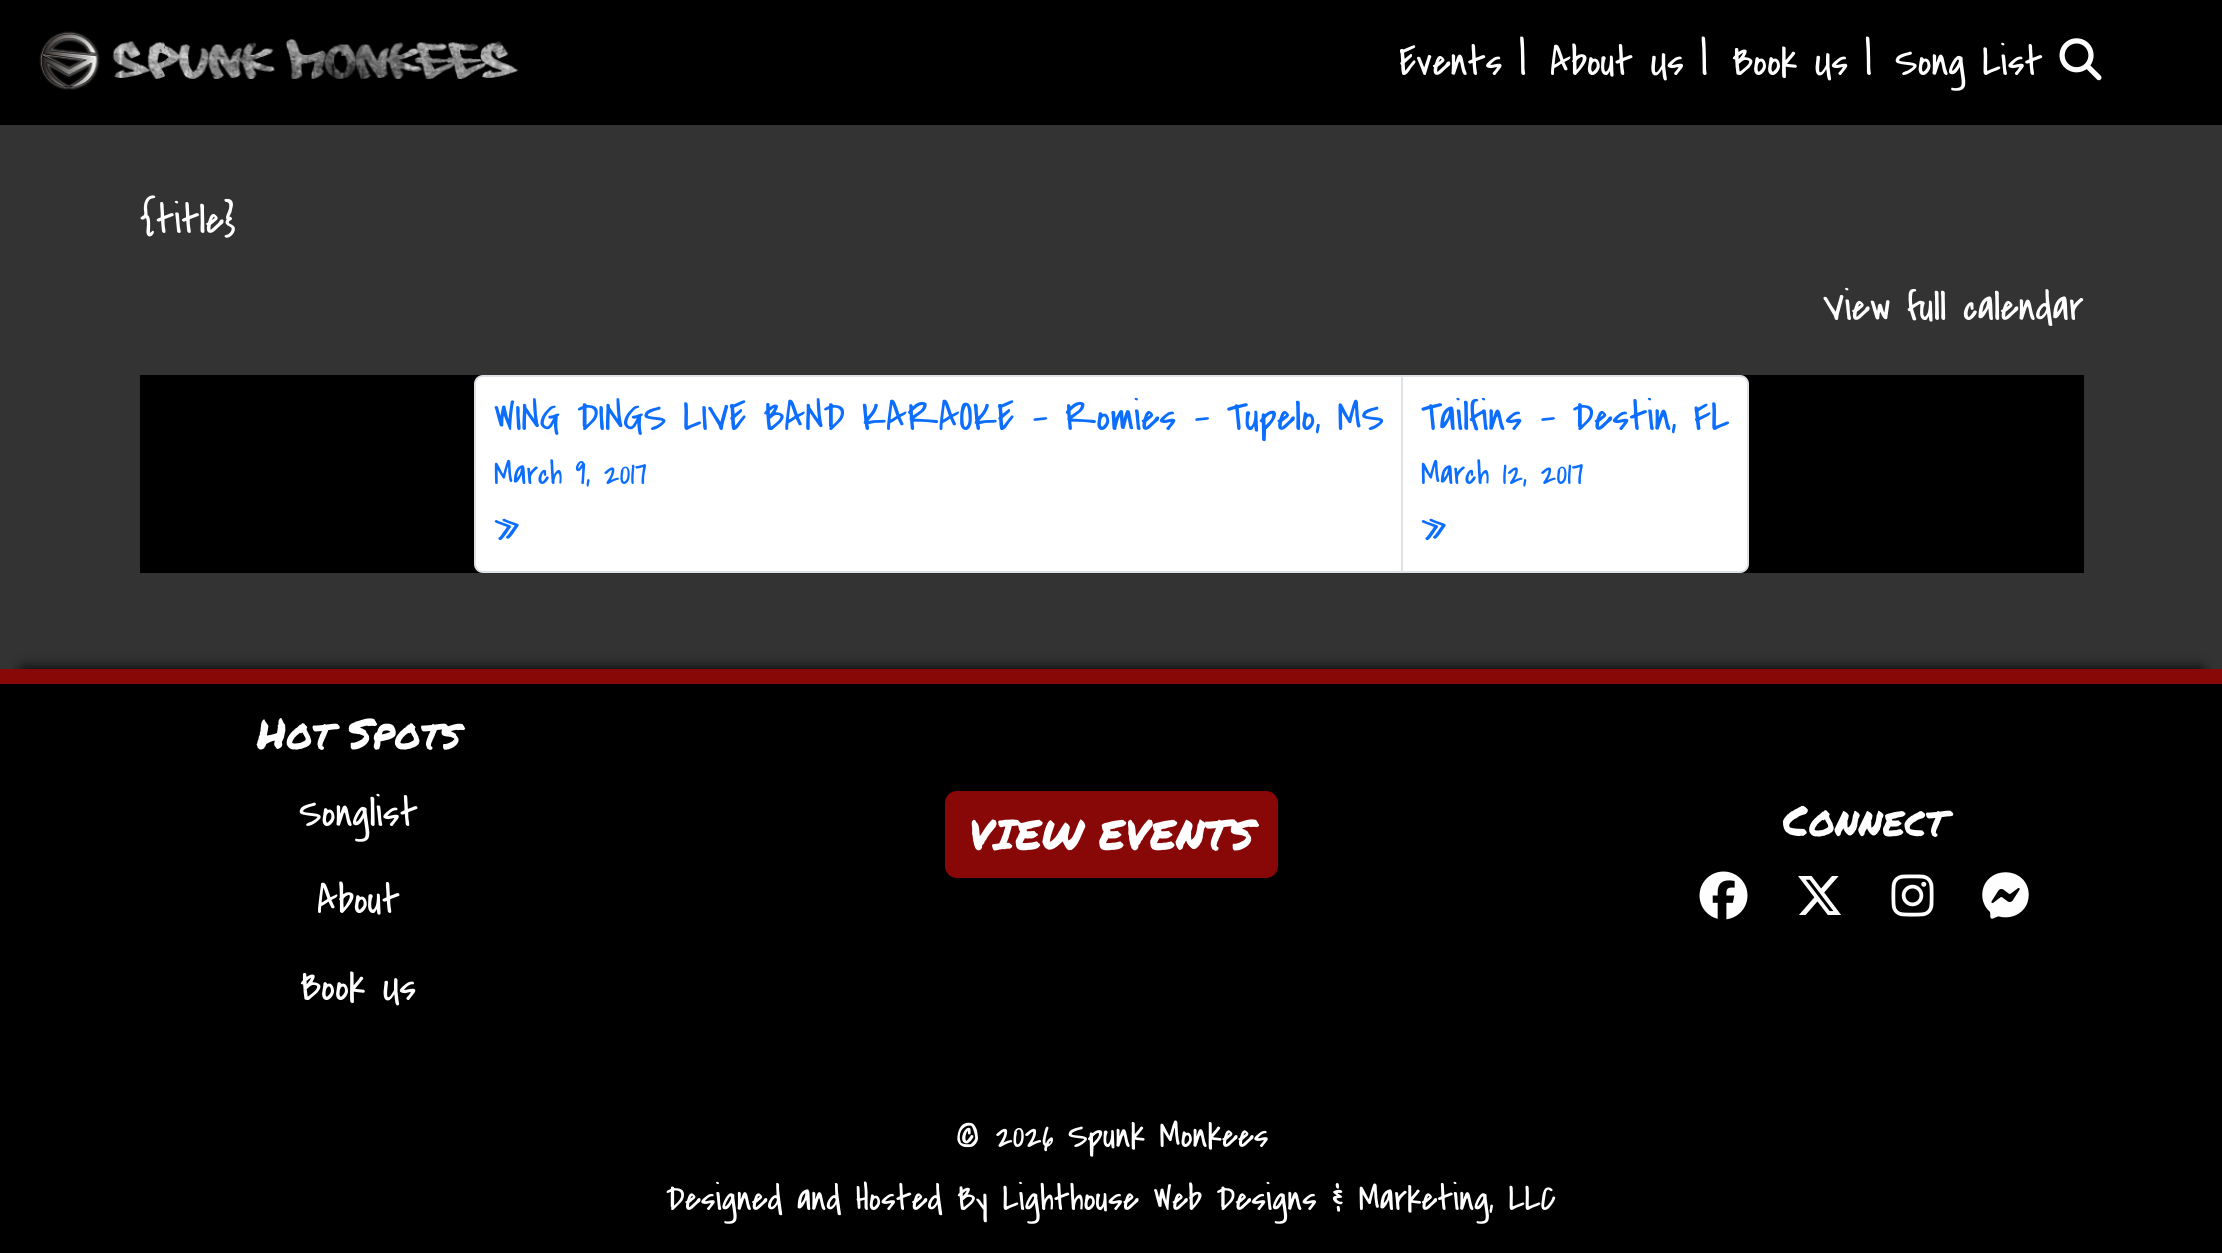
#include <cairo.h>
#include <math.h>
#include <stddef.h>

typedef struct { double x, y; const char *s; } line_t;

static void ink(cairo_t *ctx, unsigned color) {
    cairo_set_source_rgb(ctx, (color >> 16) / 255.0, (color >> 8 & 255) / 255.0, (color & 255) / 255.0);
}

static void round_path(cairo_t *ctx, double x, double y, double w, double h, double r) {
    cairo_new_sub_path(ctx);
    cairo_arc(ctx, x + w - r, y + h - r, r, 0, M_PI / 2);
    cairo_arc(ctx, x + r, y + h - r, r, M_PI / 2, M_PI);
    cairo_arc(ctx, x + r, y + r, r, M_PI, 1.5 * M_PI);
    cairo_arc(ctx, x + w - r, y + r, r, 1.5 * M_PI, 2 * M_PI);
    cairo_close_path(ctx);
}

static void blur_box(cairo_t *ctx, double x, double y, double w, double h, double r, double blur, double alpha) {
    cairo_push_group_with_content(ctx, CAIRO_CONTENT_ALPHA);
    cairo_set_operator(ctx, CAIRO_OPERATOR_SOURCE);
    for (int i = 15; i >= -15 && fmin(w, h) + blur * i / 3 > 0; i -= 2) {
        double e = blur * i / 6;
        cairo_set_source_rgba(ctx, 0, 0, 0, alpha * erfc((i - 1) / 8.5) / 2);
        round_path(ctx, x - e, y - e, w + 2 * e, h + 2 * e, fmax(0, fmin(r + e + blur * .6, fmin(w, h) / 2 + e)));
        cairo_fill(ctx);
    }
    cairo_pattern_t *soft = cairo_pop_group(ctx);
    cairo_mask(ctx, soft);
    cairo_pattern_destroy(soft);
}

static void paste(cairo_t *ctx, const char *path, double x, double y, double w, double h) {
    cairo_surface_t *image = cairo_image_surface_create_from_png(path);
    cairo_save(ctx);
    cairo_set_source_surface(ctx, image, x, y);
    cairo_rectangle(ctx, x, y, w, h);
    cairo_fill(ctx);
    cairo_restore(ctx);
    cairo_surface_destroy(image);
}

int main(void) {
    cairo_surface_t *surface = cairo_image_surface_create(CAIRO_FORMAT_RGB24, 2222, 1253);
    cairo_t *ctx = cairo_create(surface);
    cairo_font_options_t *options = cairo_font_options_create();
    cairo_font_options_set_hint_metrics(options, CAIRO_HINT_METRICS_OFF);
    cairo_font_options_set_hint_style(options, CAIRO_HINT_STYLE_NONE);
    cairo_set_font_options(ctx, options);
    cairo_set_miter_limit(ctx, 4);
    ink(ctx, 0x333333);
    cairo_paint(ctx);
    ink(ctx, 0x000000);
    cairo_rectangle(ctx, 0, 0, 2222, 125);
    cairo_fill(ctx);
    paste(ctx, "media/1.png", 39, 31, 480, 59);
    cairo_select_font_face(ctx, "Covered By Your Grace", CAIRO_FONT_SLANT_NORMAL, CAIRO_FONT_WEIGHT_NORMAL);
    cairo_set_font_size(ctx, 42);
    ink(ctx, 0xFFFFFF);
    {
        static const line_t items[] = {
            {1399, 75, "Events |"},
            {1550, 75, "About Us |"},
            {1732, 75, "Book Us |"},
            {1895, 75, "Song List"},
        };
        for (size_t i = 0; i < sizeof items / sizeof *items; i++) {
            cairo_move_to(ctx, items[i].x, items[i].y);
            cairo_show_text(ctx, items[i].s);
        }
    }
    paste(ctx, "media/2.png", 2059, 38, 43, 43);
    cairo_move_to(ctx, 140, 233);
    cairo_show_text(ctx, "{title}");
    cairo_move_to(ctx, 1823, 320);
    cairo_show_text(ctx, "View full calendar");
    ink(ctx, 0x000000);
    cairo_rectangle(ctx, 140, 375, 1944, 198);
    cairo_fill(ctx);
    ink(ctx, 0xFFFFFF);
    cairo_new_path(ctx);
    cairo_move_to(ctx, 483, 376);
    cairo_line_to(ctx, 1402, 376);
    cairo_line_to(ctx, 1402, 572);
    cairo_line_to(ctx, 483, 572);
    cairo_curve_to(ctx, 478.5, 572, 475, 568.5, 475, 564);
    cairo_line_to(ctx, 475, 384);
    cairo_curve_to(ctx, 475, 379.5, 478.5, 376, 483, 376);
    cairo_close_path(ctx);
    cairo_fill_preserve(ctx);
    ink(ctx, 0xDEE2E6);
    cairo_stroke(ctx);
    ink(ctx, 0x0D6EFD);
    cairo_move_to(ctx, 494, 430);
    cairo_show_text(ctx, "WING DINGS LIVE BAND KARAOKE – Romies – Tupelo, MS");
    cairo_set_font_size(ctx, 33.5);
    cairo_move_to(ctx, 494, 484);
    cairo_show_text(ctx, "March 9, 2017");
    cairo_set_font_size(ctx, 42);
    cairo_move_to(ctx, 494, 543);
    cairo_show_text(ctx, "»");
    ink(ctx, 0xFFFFFF);
    cairo_new_path(ctx);
    cairo_move_to(ctx, 1402, 376);
    cairo_line_to(ctx, 1740, 376);
    cairo_curve_to(ctx, 1744.5, 376, 1748, 379.5, 1748, 384);
    cairo_line_to(ctx, 1748, 564);
    cairo_curve_to(ctx, 1748, 568.5, 1744.5, 572, 1740, 572);
    cairo_line_to(ctx, 1402, 572);
    cairo_close_path(ctx);
    cairo_fill_preserve(ctx);
    ink(ctx, 0xDEE2E6);
    cairo_stroke(ctx);
    ink(ctx, 0x0D6EFD);
    cairo_move_to(ctx, 1421, 430);
    cairo_show_text(ctx, "Tailfins – Destin, FL");
    cairo_set_font_size(ctx, 33.5);
    cairo_move_to(ctx, 1421, 484);
    cairo_show_text(ctx, "March 12, 2017");
    cairo_set_font_size(ctx, 42);
    cairo_move_to(ctx, 1421, 543);
    cairo_show_text(ctx, "»");
    ink(ctx, 0x000000);
    blur_box(ctx, 23, 669, 2178, 540, 0, 7.5, 1);
    ink(ctx, 0x000000);
    cairo_rectangle(ctx, 0, 684, 2222, 569);
    cairo_fill(ctx);
    ink(ctx, 0x880808);
    cairo_rectangle(ctx, 0, 669, 2222, 15);
    cairo_fill(ctx);
    cairo_select_font_face(ctx, "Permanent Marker", CAIRO_FONT_SLANT_NORMAL, CAIRO_FONT_WEIGHT_NORMAL);
    ink(ctx, 0xFFFFFF);
    cairo_move_to(ctx, 257, 749);
    cairo_show_text(ctx, "Hot Spots");
    cairo_select_font_face(ctx, "Covered By Your Grace", CAIRO_FONT_SLANT_NORMAL, CAIRO_FONT_WEIGHT_NORMAL);
    {
        static const line_t items[] = {
            {299, 826, "Songlist"},
            {317, 913, "About"},
            {300, 1000, "Book Us"},
        };
        for (size_t i = 0; i < sizeof items / sizeof *items; i++) {
            cairo_move_to(ctx, items[i].x, items[i].y);
            cairo_show_text(ctx, items[i].s);
        }
    }
    ink(ctx, 0x880808);
    round_path(ctx, 945, 791, 333, 87, 12);
    cairo_fill(ctx);
    cairo_select_font_face(ctx, "Permanent Marker", CAIRO_FONT_SLANT_NORMAL, CAIRO_FONT_WEIGHT_NORMAL);
    ink(ctx, 0xFFFFFF);
    cairo_move_to(ctx, 969, 850);
    cairo_show_text(ctx, "VIEW EVENTS");
    cairo_move_to(ctx, 1783, 836);
    cairo_show_text(ctx, "Connect");
    paste(ctx, "media/3.png", 1699, 871, 49, 49);
    paste(ctx, "media/4.png", 1798, 876, 43, 39);
    paste(ctx, "media/5.png", 1891, 874, 43, 43);
    paste(ctx, "media/6.png", 1982, 872, 47, 47);
    cairo_select_font_face(ctx, "Covered By Your Grace", CAIRO_FONT_SLANT_NORMAL, CAIRO_FONT_WEIGHT_NORMAL);
    cairo_set_font_size(ctx, 36.75);
    cairo_move_to(ctx, 955, 1147);
    cairo_show_text(ctx, "© 2026 Spunk Monkees");
    cairo_move_to(ctx, 666, 1210);
    cairo_show_text(ctx, "Designed and Hosted By Lighthouse Web Designs & Marketing, LLC");
    cairo_surface_write_to_png(surface, "image.png");
    cairo_font_options_destroy(options);
    cairo_destroy(ctx);
    cairo_surface_destroy(surface);
    return 0;
}
